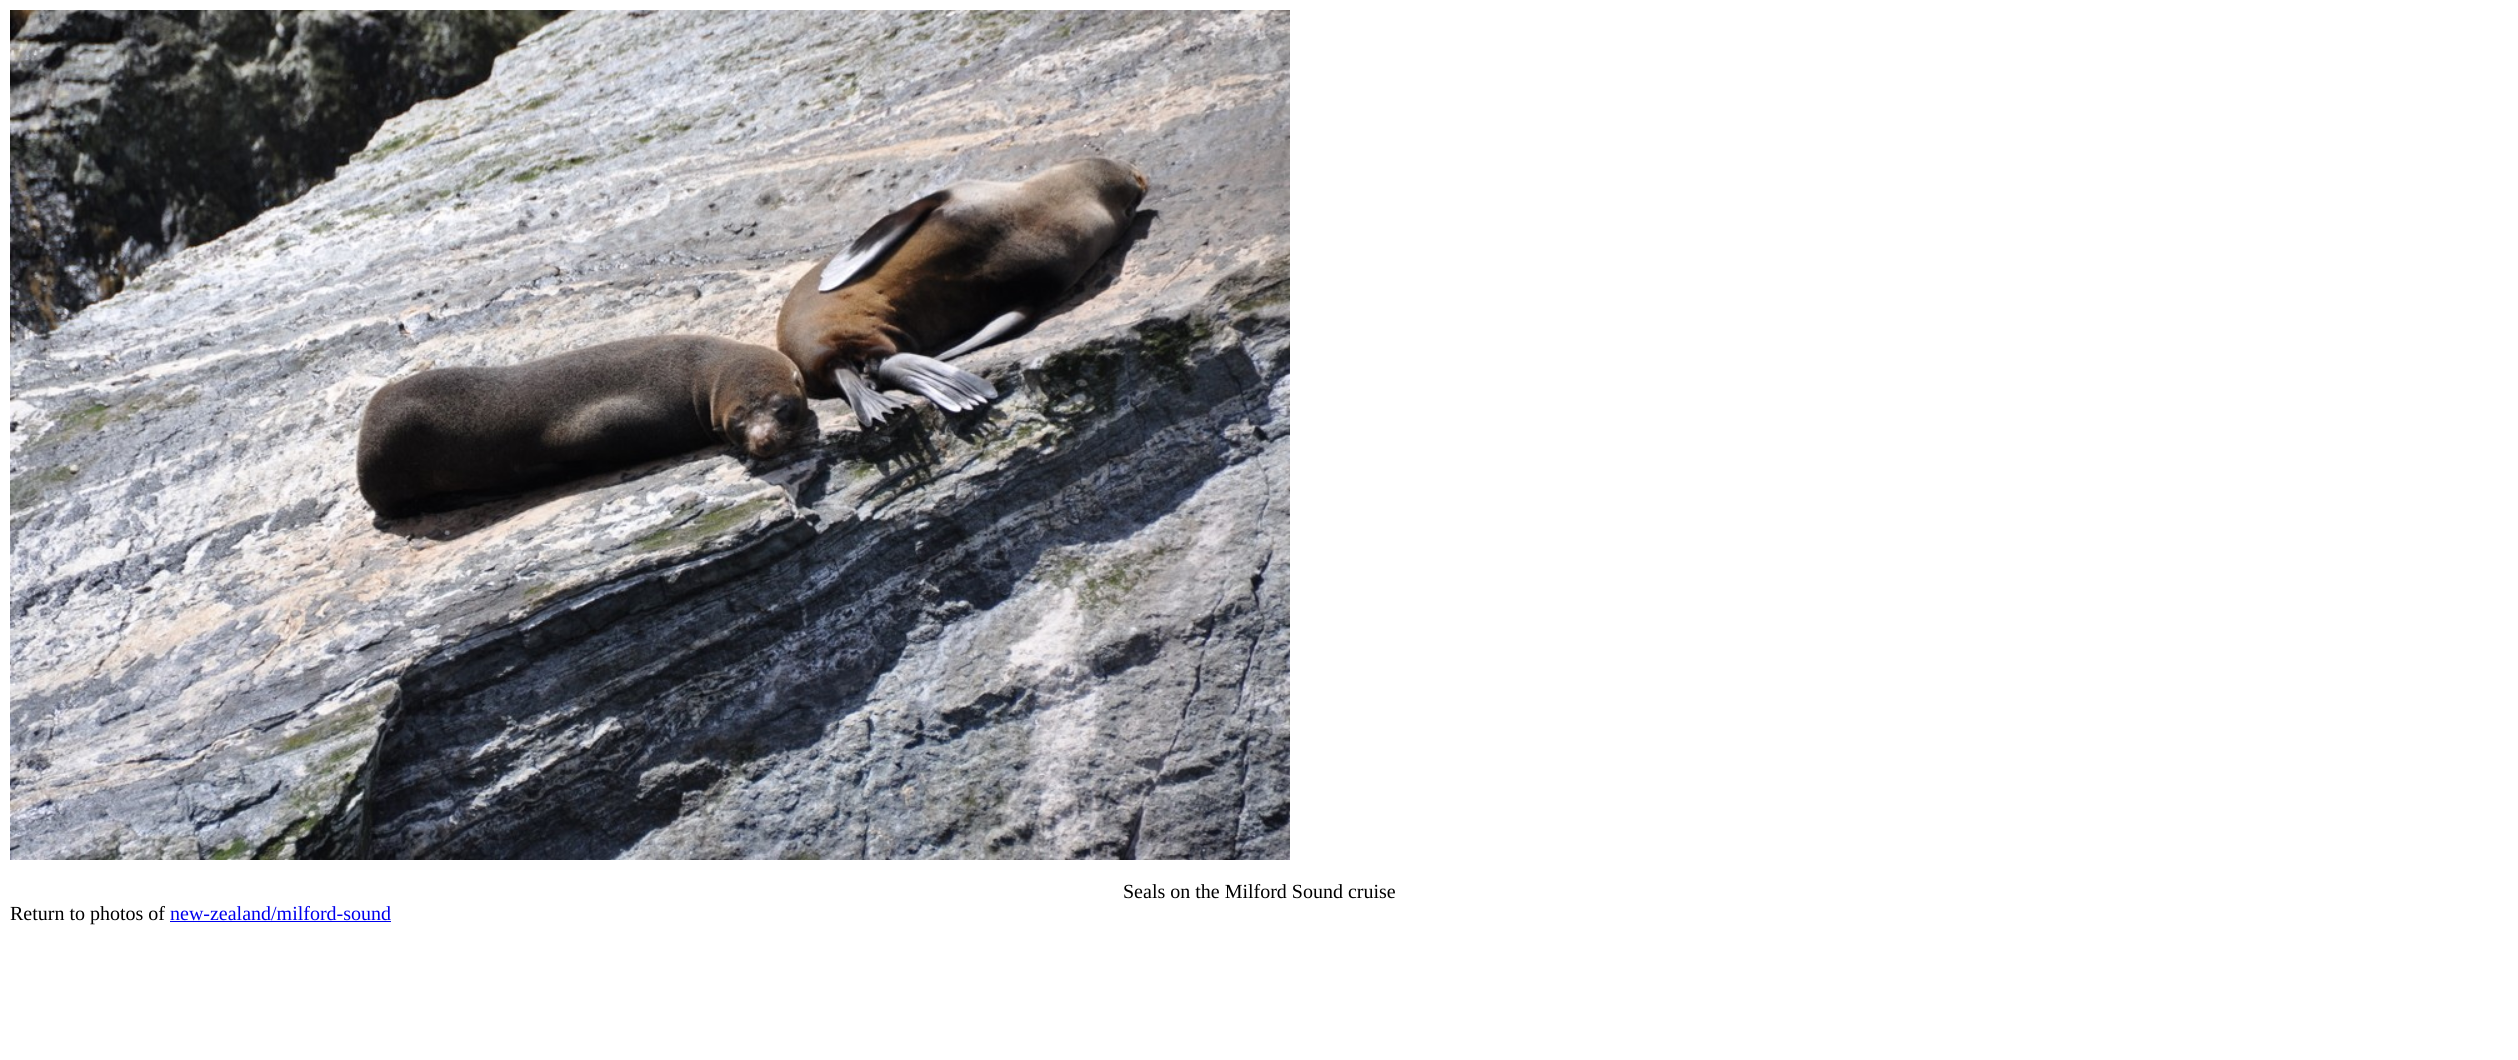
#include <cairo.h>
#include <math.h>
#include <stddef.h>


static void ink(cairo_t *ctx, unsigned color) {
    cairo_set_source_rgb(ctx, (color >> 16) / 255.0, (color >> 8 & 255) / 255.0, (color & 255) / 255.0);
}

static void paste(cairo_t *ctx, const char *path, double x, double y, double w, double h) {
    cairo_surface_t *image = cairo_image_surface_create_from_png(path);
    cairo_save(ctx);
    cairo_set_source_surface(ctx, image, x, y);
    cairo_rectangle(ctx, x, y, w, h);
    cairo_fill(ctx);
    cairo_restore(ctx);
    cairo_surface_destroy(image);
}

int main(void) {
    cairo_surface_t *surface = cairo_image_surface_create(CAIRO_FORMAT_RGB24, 2518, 1060);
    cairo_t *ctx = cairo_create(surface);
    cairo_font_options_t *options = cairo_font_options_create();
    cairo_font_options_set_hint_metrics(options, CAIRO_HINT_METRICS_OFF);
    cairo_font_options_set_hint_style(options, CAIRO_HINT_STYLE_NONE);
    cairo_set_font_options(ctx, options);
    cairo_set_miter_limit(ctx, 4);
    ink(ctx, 0xFFFFFF);
    cairo_paint(ctx);
    paste(ctx, "media/1.png", 10, 10, 1280, 850);
    cairo_select_font_face(ctx, "Liberation Serif", CAIRO_FONT_SLANT_NORMAL, CAIRO_FONT_WEIGHT_NORMAL);
    cairo_set_font_size(ctx, 20);
    ink(ctx, 0x000000);
    cairo_move_to(ctx, 1123, 898);
    cairo_show_text(ctx, "Seals on the Milford Sound cruise");
    cairo_move_to(ctx, 10, 920);
    cairo_show_text(ctx, "Return to photos of");
    ink(ctx, 0x0000EE);
    cairo_move_to(ctx, 170, 920);
    cairo_show_text(ctx, "new-zealand/milford-sound");
    cairo_rectangle(ctx, 170, 921, 221, 1);
    cairo_fill(ctx);
    cairo_surface_write_to_png(surface, "image.png");
    cairo_font_options_destroy(options);
    cairo_destroy(ctx);
    cairo_surface_destroy(surface);
    return 0;
}
